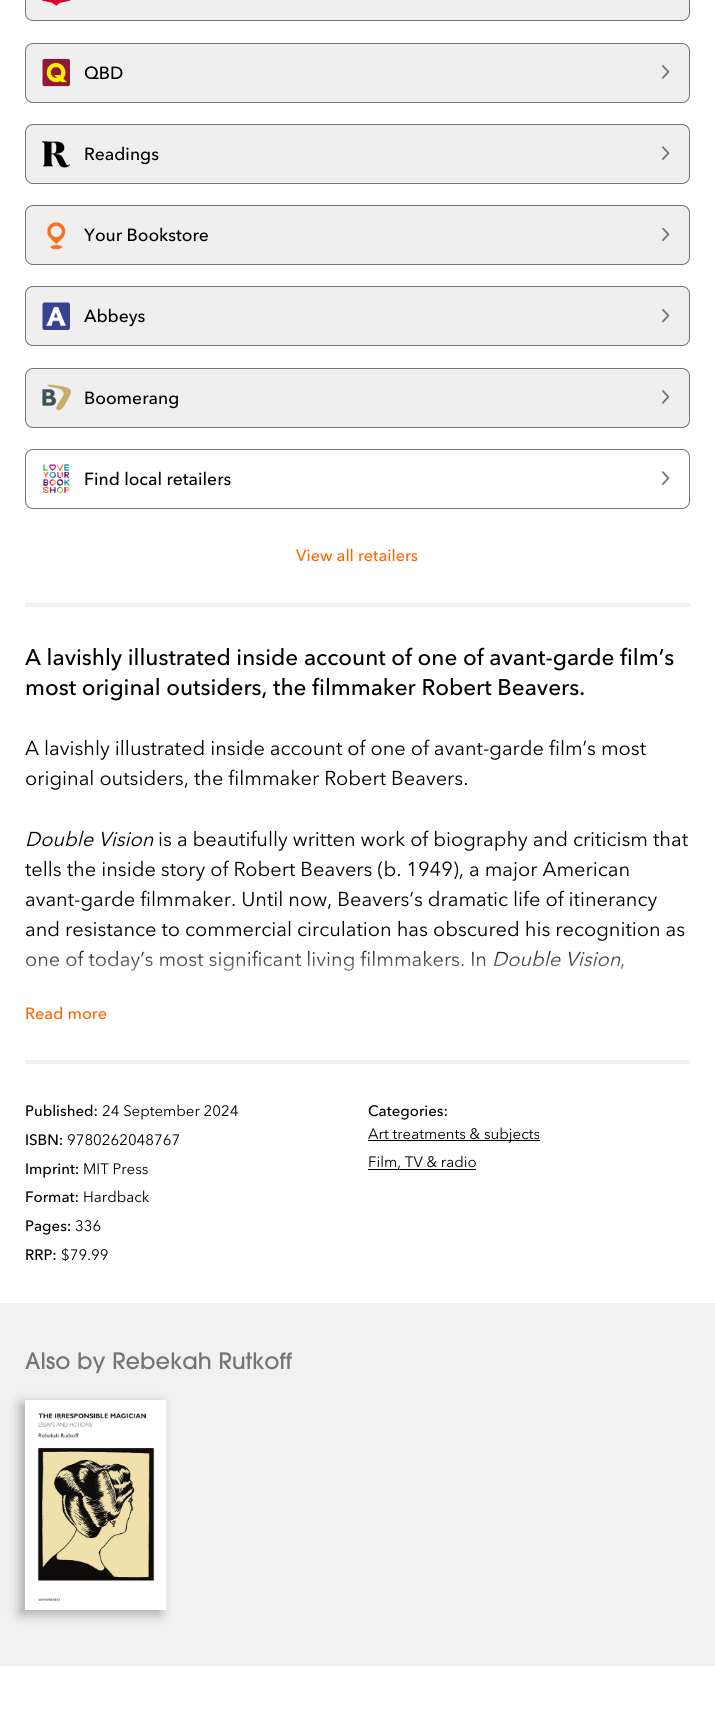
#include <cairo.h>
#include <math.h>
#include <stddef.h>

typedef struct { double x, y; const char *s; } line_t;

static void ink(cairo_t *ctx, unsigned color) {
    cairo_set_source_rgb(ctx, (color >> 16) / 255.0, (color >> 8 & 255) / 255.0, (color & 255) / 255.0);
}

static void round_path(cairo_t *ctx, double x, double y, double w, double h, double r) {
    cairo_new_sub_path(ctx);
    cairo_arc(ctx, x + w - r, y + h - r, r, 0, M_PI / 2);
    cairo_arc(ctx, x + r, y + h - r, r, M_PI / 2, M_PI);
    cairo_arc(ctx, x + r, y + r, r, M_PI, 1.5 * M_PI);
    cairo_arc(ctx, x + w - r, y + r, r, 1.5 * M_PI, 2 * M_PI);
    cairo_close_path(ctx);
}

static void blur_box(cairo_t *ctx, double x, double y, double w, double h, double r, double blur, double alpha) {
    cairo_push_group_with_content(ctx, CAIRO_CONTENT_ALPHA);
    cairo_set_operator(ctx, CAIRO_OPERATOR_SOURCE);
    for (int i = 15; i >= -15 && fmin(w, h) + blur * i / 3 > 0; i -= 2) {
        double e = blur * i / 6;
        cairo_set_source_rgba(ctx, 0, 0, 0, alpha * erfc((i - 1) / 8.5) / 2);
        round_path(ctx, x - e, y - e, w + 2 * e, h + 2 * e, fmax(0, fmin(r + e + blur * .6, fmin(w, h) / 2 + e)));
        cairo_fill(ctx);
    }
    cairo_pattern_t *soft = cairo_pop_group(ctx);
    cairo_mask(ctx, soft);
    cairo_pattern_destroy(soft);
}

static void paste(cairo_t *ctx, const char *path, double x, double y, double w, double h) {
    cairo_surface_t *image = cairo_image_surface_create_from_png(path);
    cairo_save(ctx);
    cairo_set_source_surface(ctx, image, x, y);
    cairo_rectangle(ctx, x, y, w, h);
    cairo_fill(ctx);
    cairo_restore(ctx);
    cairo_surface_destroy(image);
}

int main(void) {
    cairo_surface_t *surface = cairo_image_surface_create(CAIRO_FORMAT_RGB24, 715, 1732);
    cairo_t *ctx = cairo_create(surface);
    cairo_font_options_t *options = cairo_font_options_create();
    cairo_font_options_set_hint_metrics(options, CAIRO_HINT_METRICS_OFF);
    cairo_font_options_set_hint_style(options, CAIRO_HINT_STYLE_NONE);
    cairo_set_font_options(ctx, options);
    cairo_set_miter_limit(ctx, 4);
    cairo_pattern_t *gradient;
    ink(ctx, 0xFFFFFF);
    cairo_paint(ctx);
    ink(ctx, 0xEFEFEF);
    round_path(ctx, 25.5, -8.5, 664, 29, 7.5);
    cairo_fill_preserve(ctx);
    ink(ctx, 0x747474);
    cairo_set_line_width(ctx, 1);
    cairo_stroke(ctx);
    paste(ctx, "media/1.png", 42, 0, 28, 6);
    ink(ctx, 0xEFEFEF);
    round_path(ctx, 25.5, 43.5, 664, 59, 7.5);
    cairo_fill_preserve(ctx);
    ink(ctx, 0x747474);
    cairo_stroke(ctx);
    paste(ctx, "media/2.png", 42, 58, 28, 29);
    cairo_select_font_face(ctx, "Avenir Next Medium", CAIRO_FONT_SLANT_NORMAL, CAIRO_FONT_WEIGHT_NORMAL);
    cairo_set_font_size(ctx, 17.5);
    ink(ctx, 0x000000);
    cairo_move_to(ctx, 84, 79);
    cairo_show_text(ctx, "QBD");
    paste(ctx, "media/3.png", 662, 65, 8, 14);
    ink(ctx, 0xEFEFEF);
    round_path(ctx, 25.5, 124.5, 664, 59, 7.5);
    cairo_fill_preserve(ctx);
    ink(ctx, 0x747474);
    cairo_stroke(ctx);
    paste(ctx, "media/4.png", 42, 141, 28, 27);
    ink(ctx, 0x000000);
    cairo_move_to(ctx, 84, 160);
    cairo_show_text(ctx, "Readings");
    paste(ctx, "media/5.png", 662, 146, 8, 14);
    ink(ctx, 0xEFEFEF);
    round_path(ctx, 25.5, 205.5, 664, 59, 7.5);
    cairo_fill_preserve(ctx);
    ink(ctx, 0x747474);
    cairo_stroke(ctx);
    paste(ctx, "media/6.png", 47, 222, 19, 28);
    ink(ctx, 0x000000);
    cairo_move_to(ctx, 84, 241);
    cairo_show_text(ctx, "Your Bookstore");
    paste(ctx, "media/7.png", 662, 228, 8, 13);
    ink(ctx, 0xEFEFEF);
    round_path(ctx, 25.5, 286.5, 664, 59, 7.5);
    cairo_fill_preserve(ctx);
    ink(ctx, 0x747474);
    cairo_stroke(ctx);
    paste(ctx, "media/8.png", 42, 302, 28, 28);
    ink(ctx, 0x000000);
    cairo_move_to(ctx, 84, 322);
    cairo_show_text(ctx, "Abbeys");
    paste(ctx, "media/9.png", 662, 309, 8, 14);
    ink(ctx, 0xEFEFEF);
    round_path(ctx, 25.5, 368.5, 664, 59, 7.5);
    cairo_fill_preserve(ctx);
    ink(ctx, 0x747474);
    cairo_stroke(ctx);
    paste(ctx, "media/10.png", 42, 384, 30, 27);
    ink(ctx, 0x000000);
    cairo_move_to(ctx, 84, 404);
    cairo_show_text(ctx, "Boomerang");
    paste(ctx, "media/3.png", 662, 390, 8, 14);
    round_path(ctx, 25.5, 449.5, 664, 59, 7.5);
    ink(ctx, 0x747474);
    cairo_stroke(ctx);
    paste(ctx, "media/11.png", 42, 464, 28, 29);
    ink(ctx, 0x000000);
    cairo_move_to(ctx, 84, 485);
    cairo_show_text(ctx, "Find local retailers");
    paste(ctx, "media/12.png", 662, 471, 8, 14);
    cairo_set_font_size(ctx, 16.25);
    ink(ctx, 0xFF6600);
    cairo_move_to(ctx, 296, 561);
    cairo_show_text(ctx, "View all retailers");
    ink(ctx, 0xF1F1F1);
    cairo_rectangle(ctx, 25, 603, 665, 4);
    cairo_fill(ctx);
    cairo_set_font_size(ctx, 22.5);
    ink(ctx, 0x000000);
    cairo_move_to(ctx, 25, 665);
    cairo_show_text(ctx, "A lavishly illustrated inside account of one of avant-garde film’s");
    cairo_move_to(ctx, 25, 695);
    cairo_show_text(ctx, "most original outsiders, the filmmaker Robert Beavers.");
    cairo_select_font_face(ctx, "Avenir Next", CAIRO_FONT_SLANT_NORMAL, CAIRO_FONT_WEIGHT_NORMAL);
    cairo_set_font_size(ctx, 20);
    cairo_move_to(ctx, 25, 755);
    cairo_show_text(ctx, "A lavishly illustrated inside account of one of avant-garde film’s most");
    cairo_move_to(ctx, 25, 785);
    cairo_show_text(ctx, "original outsiders, the filmmaker Robert Beavers.");
    cairo_select_font_face(ctx, "Avenir Next", CAIRO_FONT_SLANT_ITALIC, CAIRO_FONT_WEIGHT_NORMAL);
    cairo_move_to(ctx, 25, 846);
    cairo_show_text(ctx, "Double Vision");
    cairo_select_font_face(ctx, "Avenir Next", CAIRO_FONT_SLANT_NORMAL, CAIRO_FONT_WEIGHT_NORMAL);
    {
        static const line_t items[] = {
            {158, 846, "is a beautifully written work of biography and criticism that"},
            {25, 876, "tells the inside story of Robert Beavers (b. 1949), a major American"},
            {25, 906, "avant-garde filmmaker. Until now, Beavers’s dramatic life of itinerancy"},
            {25, 936, "and resistance to commercial circulation has obscured his recognition as"},
            {25, 966, "one of today’s most significant living filmmakers. In"},
        };
        for (size_t i = 0; i < sizeof items / sizeof *items; i++) {
            cairo_move_to(ctx, items[i].x, items[i].y);
            cairo_show_text(ctx, items[i].s);
        }
    }
    cairo_select_font_face(ctx, "Avenir Next", CAIRO_FONT_SLANT_ITALIC, CAIRO_FONT_WEIGHT_NORMAL);
    cairo_move_to(ctx, 492, 966);
    cairo_show_text(ctx, "Double Vision");
    cairo_select_font_face(ctx, "Avenir Next", CAIRO_FONT_SLANT_NORMAL, CAIRO_FONT_WEIGHT_NORMAL);
    cairo_move_to(ctx, 620, 966);
    cairo_show_text(ctx, ",");
    gradient = cairo_pattern_create_linear(358, 946, 358, 996);
    cairo_pattern_add_color_stop_rgba(gradient, 0, 1, 1, 1, 0);
    cairo_pattern_add_color_stop_rgba(gradient, 1, 1, 1, 1, 1);
    cairo_set_source(ctx, gradient);
    cairo_pattern_destroy(gradient);
    cairo_rectangle(ctx, 26, 950, 598, 21);
    cairo_fill(ctx);
    cairo_select_font_face(ctx, "Avenir Next Medium", CAIRO_FONT_SLANT_NORMAL, CAIRO_FONT_WEIGHT_NORMAL);
    cairo_set_font_size(ctx, 16.25);
    ink(ctx, 0xFF6600);
    cairo_move_to(ctx, 25, 1019);
    cairo_show_text(ctx, "Read more");
    ink(ctx, 0xF1F1F1);
    cairo_rectangle(ctx, 25, 1060, 665, 4);
    cairo_fill(ctx);
    cairo_set_font_size(ctx, 15);
    ink(ctx, 0x000000);
    cairo_move_to(ctx, 25, 1116);
    cairo_show_text(ctx, "Published:");
    cairo_select_font_face(ctx, "Avenir Next", CAIRO_FONT_SLANT_NORMAL, CAIRO_FONT_WEIGHT_NORMAL);
    cairo_move_to(ctx, 102, 1116);
    cairo_show_text(ctx, "24 September 2024");
    cairo_select_font_face(ctx, "Avenir Next Medium", CAIRO_FONT_SLANT_NORMAL, CAIRO_FONT_WEIGHT_NORMAL);
    cairo_move_to(ctx, 25, 1145);
    cairo_show_text(ctx, "ISBN:");
    cairo_select_font_face(ctx, "Avenir Next", CAIRO_FONT_SLANT_NORMAL, CAIRO_FONT_WEIGHT_NORMAL);
    cairo_move_to(ctx, 67, 1145);
    cairo_show_text(ctx, "9780262048767");
    cairo_select_font_face(ctx, "Avenir Next Medium", CAIRO_FONT_SLANT_NORMAL, CAIRO_FONT_WEIGHT_NORMAL);
    cairo_move_to(ctx, 25, 1174);
    cairo_show_text(ctx, "Imprint:");
    cairo_select_font_face(ctx, "Avenir Next", CAIRO_FONT_SLANT_NORMAL, CAIRO_FONT_WEIGHT_NORMAL);
    cairo_move_to(ctx, 83, 1174);
    cairo_show_text(ctx, "MIT Press");
    cairo_select_font_face(ctx, "Avenir Next Medium", CAIRO_FONT_SLANT_NORMAL, CAIRO_FONT_WEIGHT_NORMAL);
    cairo_move_to(ctx, 25, 1202);
    cairo_show_text(ctx, "Format:");
    cairo_select_font_face(ctx, "Avenir Next", CAIRO_FONT_SLANT_NORMAL, CAIRO_FONT_WEIGHT_NORMAL);
    cairo_move_to(ctx, 83, 1202);
    cairo_show_text(ctx, "Hardback");
    cairo_select_font_face(ctx, "Avenir Next Medium", CAIRO_FONT_SLANT_NORMAL, CAIRO_FONT_WEIGHT_NORMAL);
    cairo_move_to(ctx, 25, 1231);
    cairo_show_text(ctx, "Pages:");
    cairo_select_font_face(ctx, "Avenir Next", CAIRO_FONT_SLANT_NORMAL, CAIRO_FONT_WEIGHT_NORMAL);
    cairo_move_to(ctx, 75, 1231);
    cairo_show_text(ctx, "336");
    cairo_select_font_face(ctx, "Avenir Next Medium", CAIRO_FONT_SLANT_NORMAL, CAIRO_FONT_WEIGHT_NORMAL);
    cairo_move_to(ctx, 25, 1260);
    cairo_show_text(ctx, "RRP:");
    cairo_select_font_face(ctx, "Avenir Next", CAIRO_FONT_SLANT_NORMAL, CAIRO_FONT_WEIGHT_NORMAL);
    cairo_move_to(ctx, 61, 1260);
    cairo_show_text(ctx, "$79.99");
    cairo_select_font_face(ctx, "Avenir Next Medium", CAIRO_FONT_SLANT_NORMAL, CAIRO_FONT_WEIGHT_NORMAL);
    cairo_move_to(ctx, 368, 1116);
    cairo_show_text(ctx, "Categories:");
    cairo_rectangle(ctx, 368, 1140, 172, 1);
    cairo_fill(ctx);
    cairo_select_font_face(ctx, "Avenir Next", CAIRO_FONT_SLANT_NORMAL, CAIRO_FONT_WEIGHT_NORMAL);
    cairo_move_to(ctx, 368, 1139);
    cairo_show_text(ctx, "Art treatments & subjects");
    cairo_rectangle(ctx, 368, 1169, 108, 1);
    cairo_fill(ctx);
    cairo_move_to(ctx, 368, 1167);
    cairo_show_text(ctx, "Film, TV & radio");
    ink(ctx, 0xF1F1F1);
    cairo_rectangle(ctx, 0, 1303, 715, 363);
    cairo_fill(ctx);
    cairo_select_font_face(ctx, "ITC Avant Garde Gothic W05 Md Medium", CAIRO_FONT_SLANT_NORMAL, CAIRO_FONT_WEIGHT_NORMAL);
    cairo_set_font_size(ctx, 22.5);
    ink(ctx, 0x747474);
    cairo_move_to(ctx, 25, 1369);
    cairo_show_text(ctx, "Also by Rebekah Rutkoff");
    ink(ctx, 0x000000);
    blur_box(ctx, 20, 1404, 141, 210, 0, 6, 0.3);
    paste(ctx, "media/13.png", 25, 1400, 142, 210);
    cairo_surface_write_to_png(surface, "image.png");
    cairo_font_options_destroy(options);
    cairo_destroy(ctx);
    cairo_surface_destroy(surface);
    return 0;
}
